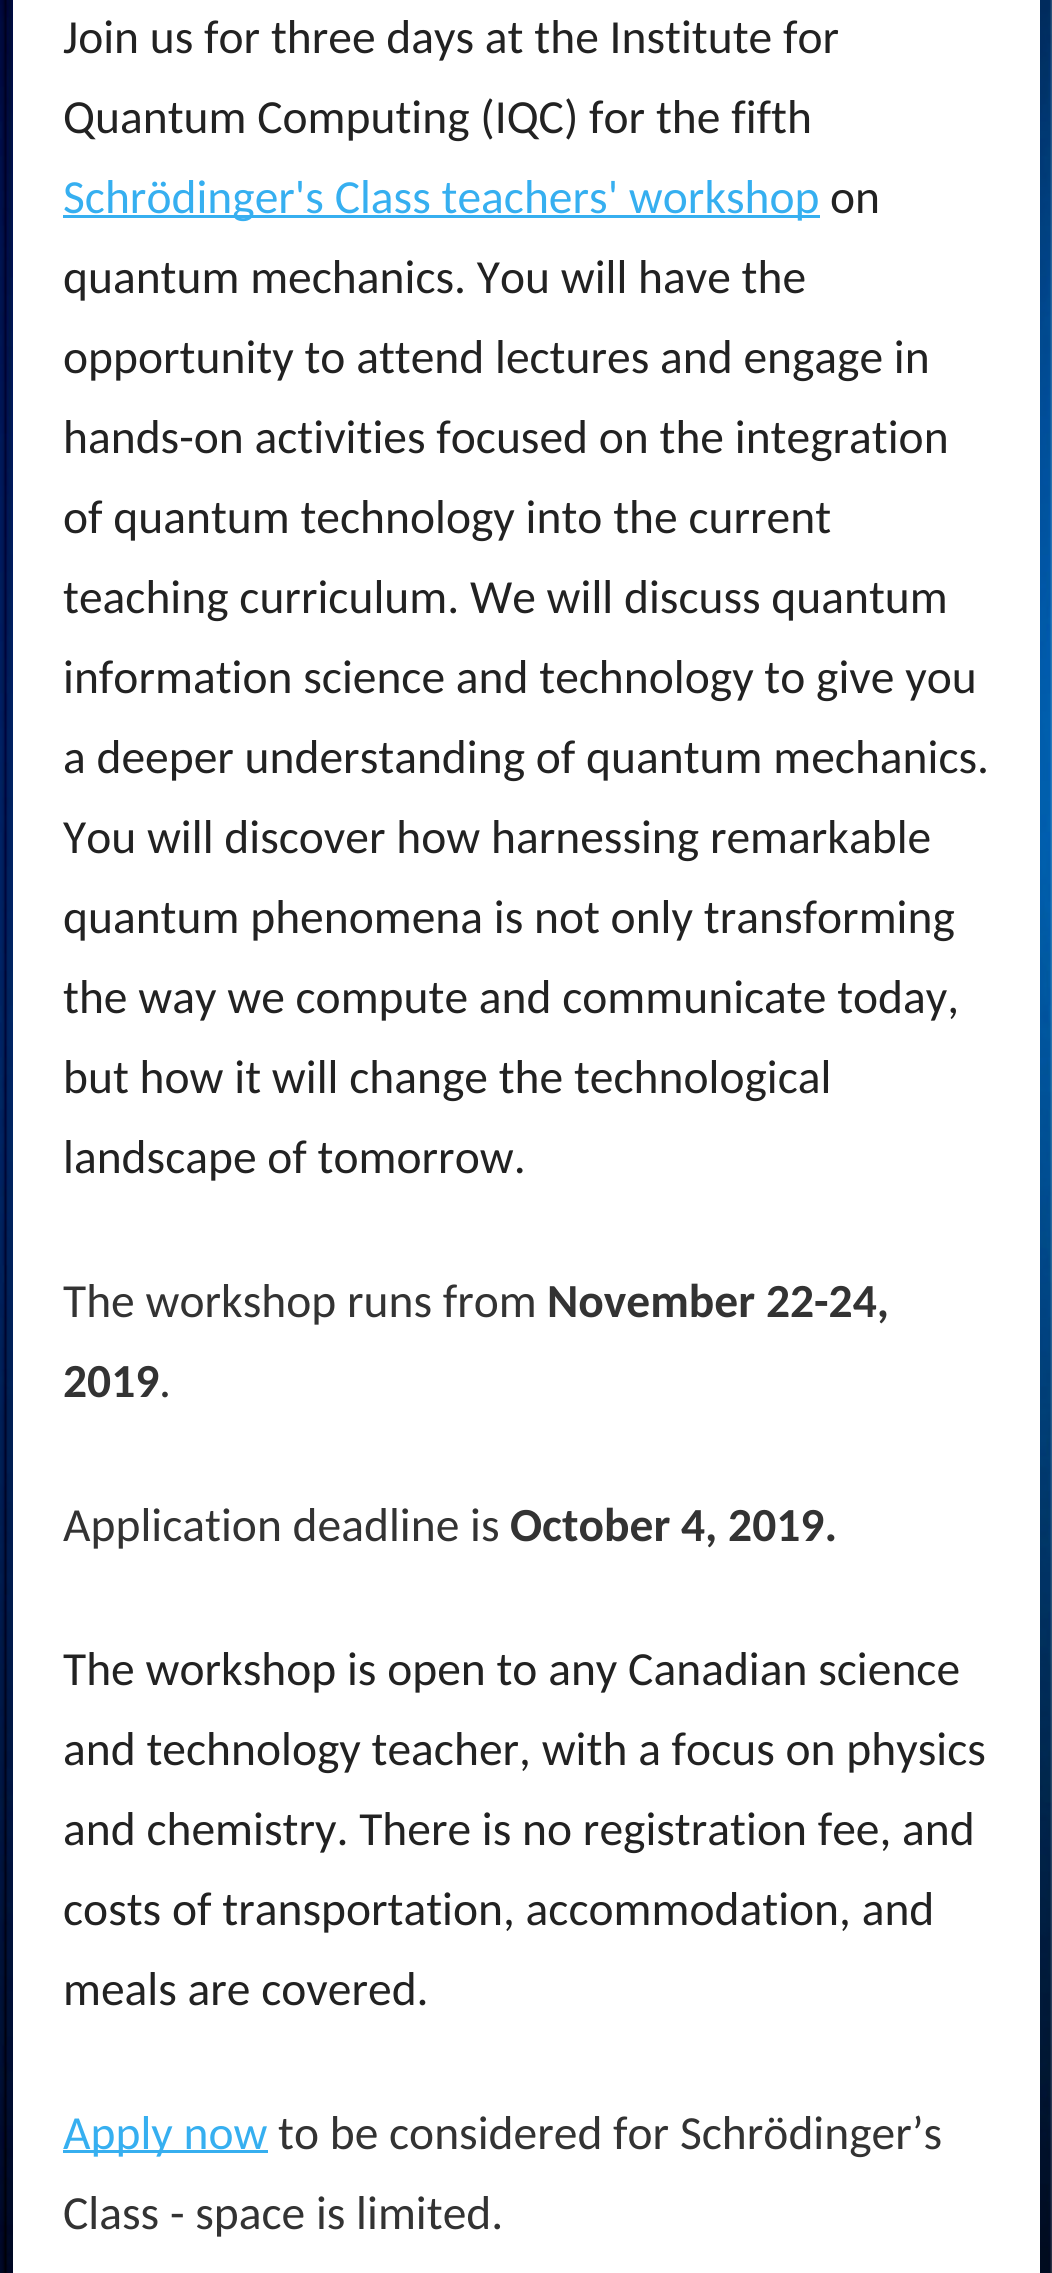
#include <cairo.h>
#include <math.h>
#include <stddef.h>

typedef struct { double x, y; const char *s; } line_t;

static void ink(cairo_t *ctx, unsigned color) {
    cairo_set_source_rgb(ctx, (color >> 16) / 255.0, (color >> 8 & 255) / 255.0, (color & 255) / 255.0);
}

static void paste(cairo_t *ctx, const char *path, double x, double y, double w, double h) {
    cairo_surface_t *image = cairo_image_surface_create_from_png(path);
    cairo_save(ctx);
    cairo_set_source_surface(ctx, image, x, y);
    cairo_rectangle(ctx, x, y, w, h);
    cairo_fill(ctx);
    cairo_restore(ctx);
    cairo_surface_destroy(image);
}

int main(void) {
    cairo_surface_t *surface = cairo_image_surface_create(CAIRO_FORMAT_RGB24, 1052, 2273);
    cairo_t *ctx = cairo_create(surface);
    cairo_font_options_t *options = cairo_font_options_create();
    cairo_font_options_set_hint_metrics(options, CAIRO_HINT_METRICS_OFF);
    cairo_font_options_set_hint_style(options, CAIRO_HINT_STYLE_NONE);
    cairo_set_font_options(ctx, options);
    cairo_set_miter_limit(ctx, 4);
    ink(ctx, 0xFFFFFF);
    cairo_paint(ctx);
    paste(ctx, "media/1.png", 0, 0, 1052, 2273);
    ink(ctx, 0xFFFFFF);
    cairo_rectangle(ctx, 13, 0, 1027, 2273);
    cairo_fill(ctx);
    cairo_select_font_face(ctx, "Carlito", CAIRO_FONT_SLANT_NORMAL, CAIRO_FONT_WEIGHT_NORMAL);
    cairo_set_font_size(ctx, 47.5);
    ink(ctx, 0x222222);
    cairo_move_to(ctx, 63, 53);
    cairo_show_text(ctx, "Join us for three days at the Institute for");
    cairo_move_to(ctx, 63, 133);
    cairo_show_text(ctx, "Quantum Computing (IQC) for the fifth");
    ink(ctx, 0x36AFF0);
    cairo_rectangle(ctx, 63, 215, 757, 3);
    cairo_fill(ctx);
    cairo_move_to(ctx, 63, 213);
    cairo_show_text(ctx, "Schrödinger's Class teachers' workshop");
    ink(ctx, 0x222222);
    {
        static const line_t items[] = {
            {830, 213, "on"},
            {63, 293, "quantum mechanics. You will have the"},
            {63, 373, "opportunity to attend lectures and engage in"},
            {63, 453, "hands-on activities focused on the integration"},
            {63, 533, "of quantum technology into the current"},
            {63, 613, "teaching curriculum. We will discuss quantum"},
            {63, 693, "information science and technology to give you"},
            {63, 773, "a deeper understanding of quantum mechanics."},
            {63, 853, "You will discover how harnessing remarkable"},
            {63, 933, "quantum phenomena is not only transforming"},
            {63, 1013, "the way we compute and communicate today,"},
            {63, 1093, "but how it will change the technological"},
            {63, 1173, "landscape of tomorrow."},
        };
        for (size_t i = 0; i < sizeof items / sizeof *items; i++) {
            cairo_move_to(ctx, items[i].x, items[i].y);
            cairo_show_text(ctx, items[i].s);
        }
    }
    ink(ctx, 0x333333);
    cairo_move_to(ctx, 63, 1317);
    cairo_show_text(ctx, "The workshop runs from");
    cairo_select_font_face(ctx, "Carlito", CAIRO_FONT_SLANT_NORMAL, CAIRO_FONT_WEIGHT_BOLD);
    cairo_move_to(ctx, 547, 1317);
    cairo_show_text(ctx, "November 22-24,");
    cairo_move_to(ctx, 63, 1397);
    cairo_show_text(ctx, "2019");
    cairo_select_font_face(ctx, "Carlito", CAIRO_FONT_SLANT_NORMAL, CAIRO_FONT_WEIGHT_NORMAL);
    cairo_move_to(ctx, 159, 1397);
    cairo_show_text(ctx, ".");
    cairo_move_to(ctx, 63, 1541);
    cairo_show_text(ctx, "Application deadline is");
    cairo_select_font_face(ctx, "Carlito", CAIRO_FONT_SLANT_NORMAL, CAIRO_FONT_WEIGHT_BOLD);
    cairo_move_to(ctx, 510, 1541);
    cairo_show_text(ctx, "October 4, 2019.");
    cairo_select_font_face(ctx, "Carlito", CAIRO_FONT_SLANT_NORMAL, CAIRO_FONT_WEIGHT_NORMAL);
    ink(ctx, 0x222222);
    {
        static const line_t items[] = {
            {63, 1685, "The workshop is open to any Canadian science"},
            {63, 1765, "and technology teacher, with a focus on physics"},
            {63, 1845, "and chemistry. There is no registration fee, and"},
            {63, 1925, "costs of transportation, accommodation, and"},
            {63, 2005, "meals are covered."},
        };
        for (size_t i = 0; i < sizeof items / sizeof *items; i++) {
            cairo_move_to(ctx, items[i].x, items[i].y);
            cairo_show_text(ctx, items[i].s);
        }
    }
    ink(ctx, 0x36AFF0);
    cairo_rectangle(ctx, 63, 2150, 205, 3);
    cairo_fill(ctx);
    cairo_move_to(ctx, 63, 2149);
    cairo_show_text(ctx, "Apply now");
    ink(ctx, 0x333333);
    cairo_move_to(ctx, 278, 2149);
    cairo_show_text(ctx, "to be considered for Schrödinger’s");
    cairo_move_to(ctx, 63, 2229);
    cairo_show_text(ctx, "Class - space is limited.");
    cairo_surface_write_to_png(surface, "image.png");
    cairo_font_options_destroy(options);
    cairo_destroy(ctx);
    cairo_surface_destroy(surface);
    return 0;
}
